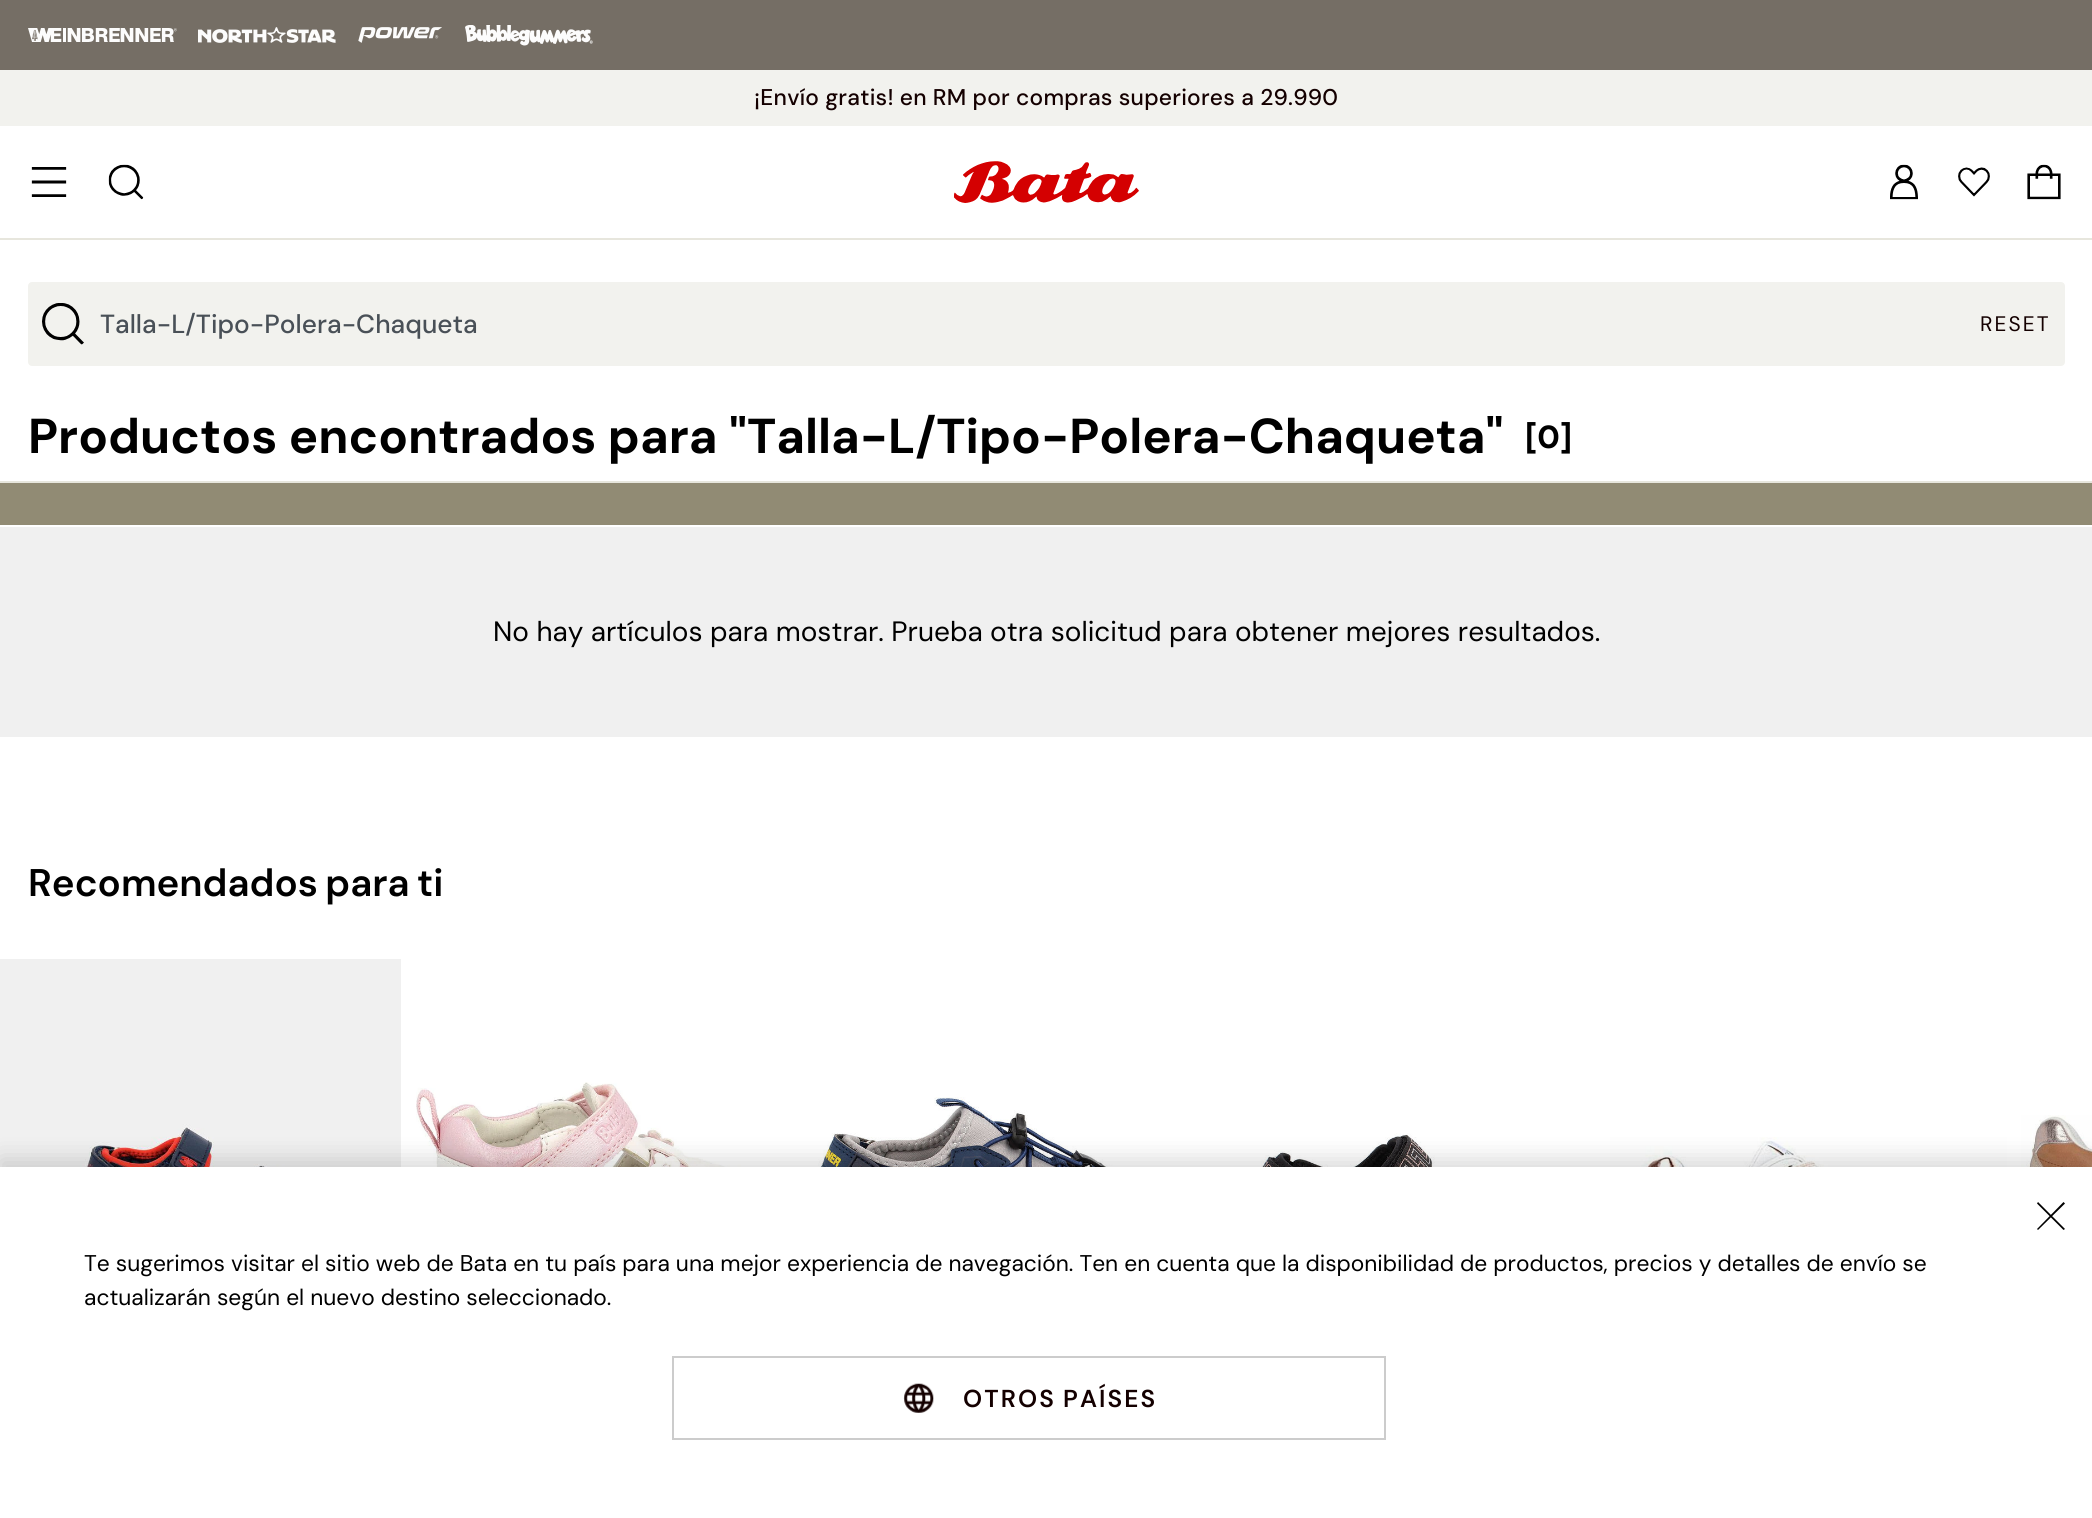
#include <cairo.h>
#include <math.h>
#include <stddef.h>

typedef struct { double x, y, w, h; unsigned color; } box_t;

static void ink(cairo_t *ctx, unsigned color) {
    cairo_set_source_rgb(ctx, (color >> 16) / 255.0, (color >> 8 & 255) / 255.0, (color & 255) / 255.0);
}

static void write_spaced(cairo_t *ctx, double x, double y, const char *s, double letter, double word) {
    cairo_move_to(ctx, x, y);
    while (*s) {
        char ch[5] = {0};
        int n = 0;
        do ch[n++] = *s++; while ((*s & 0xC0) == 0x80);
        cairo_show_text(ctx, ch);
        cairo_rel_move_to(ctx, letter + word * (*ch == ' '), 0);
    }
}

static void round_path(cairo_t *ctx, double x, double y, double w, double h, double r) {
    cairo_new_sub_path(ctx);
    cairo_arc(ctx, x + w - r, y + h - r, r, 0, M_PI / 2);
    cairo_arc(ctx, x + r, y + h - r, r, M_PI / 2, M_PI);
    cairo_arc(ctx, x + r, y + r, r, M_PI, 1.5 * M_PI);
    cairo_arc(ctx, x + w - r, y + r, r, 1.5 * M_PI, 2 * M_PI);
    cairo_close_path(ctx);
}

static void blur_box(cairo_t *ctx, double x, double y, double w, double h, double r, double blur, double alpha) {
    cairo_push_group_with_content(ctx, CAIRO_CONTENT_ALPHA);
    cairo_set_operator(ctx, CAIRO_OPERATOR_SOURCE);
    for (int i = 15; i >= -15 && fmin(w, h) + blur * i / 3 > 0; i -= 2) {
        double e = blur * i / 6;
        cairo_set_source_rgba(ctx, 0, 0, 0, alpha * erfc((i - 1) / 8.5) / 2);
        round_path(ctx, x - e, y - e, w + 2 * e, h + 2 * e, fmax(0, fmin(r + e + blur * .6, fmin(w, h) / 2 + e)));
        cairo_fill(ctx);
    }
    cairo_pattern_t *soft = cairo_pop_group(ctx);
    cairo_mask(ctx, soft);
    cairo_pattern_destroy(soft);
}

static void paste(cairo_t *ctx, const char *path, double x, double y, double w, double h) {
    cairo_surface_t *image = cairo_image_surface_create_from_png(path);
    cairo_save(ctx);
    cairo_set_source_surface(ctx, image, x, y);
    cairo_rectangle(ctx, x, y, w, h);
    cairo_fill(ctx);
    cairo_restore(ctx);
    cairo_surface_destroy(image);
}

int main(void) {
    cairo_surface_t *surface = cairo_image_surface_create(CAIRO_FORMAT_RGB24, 2092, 1518);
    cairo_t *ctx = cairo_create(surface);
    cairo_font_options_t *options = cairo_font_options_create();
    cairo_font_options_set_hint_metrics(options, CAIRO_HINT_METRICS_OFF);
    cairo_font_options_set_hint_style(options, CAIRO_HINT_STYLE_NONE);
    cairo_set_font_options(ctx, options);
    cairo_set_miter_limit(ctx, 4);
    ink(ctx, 0xFFFFFF);
    cairo_paint(ctx);
    ink(ctx, 0x756E65);
    cairo_rectangle(ctx, 0, 0, 2092, 70);
    cairo_fill(ctx);
    paste(ctx, "media/1.png", 28, 28, 149, 14);
    paste(ctx, "media/2.png", 198, 27, 138, 16);
    paste(ctx, "media/3.png", 358, 27, 84, 16);
    paste(ctx, "media/4.png", 465, 25, 128, 21);
    ink(ctx, 0xF2F2EE);
    cairo_rectangle(ctx, 0, 70, 2092, 56);
    cairo_fill(ctx);
    cairo_select_font_face(ctx, "DM Sans Medium", CAIRO_FONT_SLANT_NORMAL, CAIRO_FONT_WEIGHT_NORMAL);
    cairo_set_font_size(ctx, 22.75);
    ink(ctx, 0x140000);
    write_spaced(ctx, 754, 105, "¡Envío gratis! en RM por compras superiores a 29.990", 0.23, 0);
    ink(ctx, 0xE7E6DD);
    cairo_rectangle(ctx, 0, 238, 2092, 2);
    cairo_fill(ctx);
    paste(ctx, "media/5.png", 31, 167, 36, 30);
    paste(ctx, "media/6.png", 108, 164, 36, 36);
    paste(ctx, "media/7.png", 954, 161, 185, 42);
    paste(ctx, "media/8.png", 1890, 164, 28, 36);
    paste(ctx, "media/9.png", 1958, 167, 32, 30);
    paste(ctx, "media/10.png", 2027, 164, 34, 36);
    ink(ctx, 0xF2F2EE);
    round_path(ctx, 29, 283, 2035, 82, 3);
    cairo_fill_preserve(ctx);
    cairo_stroke(ctx);
    paste(ctx, "media/11.png", 42, 303, 42, 42);
    cairo_set_font_size(ctx, 26.25);
    ink(ctx, 0x495057);
    cairo_move_to(ctx, 100, 333);
    cairo_show_text(ctx, "Talla-L/Tipo-Polera-Chaqueta");
    cairo_select_font_face(ctx, "DM Sans", CAIRO_FONT_SLANT_NORMAL, CAIRO_FONT_WEIGHT_NORMAL);
    cairo_set_font_size(ctx, 21);
    ink(ctx, 0x140000);
    write_spaced(ctx, 1980, 331, "RESET", 2.1, 0);
    cairo_select_font_face(ctx, "DM Sans", CAIRO_FONT_SLANT_NORMAL, CAIRO_FONT_WEIGHT_BOLD);
    cairo_set_font_size(ctx, 49);
    ink(ctx, 0x000000);
    cairo_move_to(ctx, 28, 453);
    cairo_show_text(ctx, "Productos encontrados para \"Talla-L/Tipo-Polera-Chaqueta\"");
    cairo_select_font_face(ctx, "DM Sans ExtraBold", CAIRO_FONT_SLANT_NORMAL, CAIRO_FONT_WEIGHT_NORMAL);
    cairo_set_font_size(ctx, 32);
    cairo_move_to(ctx, 1525, 448);
    cairo_show_text(ctx, "[0]");
    {
        static const box_t items[] = {
            {0, 481, 2092, 2, 0xE7E6DD},
            {0, 483, 2092, 42, 0x918B74},
            {0, 527, 2092, 210, 0xF0F0F0},
        };
        for (size_t i = 0; i < sizeof items / sizeof *items; i++) {
            ink(ctx, items[i].color);
            cairo_rectangle(ctx, items[i].x, items[i].y, items[i].w, items[i].h);
            cairo_fill(ctx);
        }
    }
    cairo_select_font_face(ctx, "DM Sans", CAIRO_FONT_SLANT_NORMAL, CAIRO_FONT_WEIGHT_NORMAL);
    cairo_set_font_size(ctx, 28);
    ink(ctx, 0x000000);
    cairo_move_to(ctx, 493, 641);
    cairo_show_text(ctx, "No hay artículos para mostrar. Prueba otra solicitud para obtener mejores resultados.");
    cairo_select_font_face(ctx, "DM Sans SemiBold", CAIRO_FONT_SLANT_NORMAL, CAIRO_FONT_WEIGHT_NORMAL);
    cairo_set_font_size(ctx, 38.5);
    write_spaced(ctx, 28, 896, "Recomendados para ti", 0, -2);
    paste(ctx, "media/12.png", 0, 959, 401, 208);
    paste(ctx, "media/13.png", 416, 1082, 374, 85);
    paste(ctx, "media/14.png", 814, 1097, 380, 70);
    paste(ctx, "media/15.png", 1216, 1133, 384, 34);
    paste(ctx, "media/16.png", 1610, 1137, 397, 30);
    paste(ctx, "media/17.png", 2021, 1115, 71, 52);
    ink(ctx, 0x000000);
    blur_box(ctx, 0, 1159, 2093, 351, 0, 12, 0.15);
    ink(ctx, 0xFFFFFF);
    cairo_rectangle(ctx, 0, 1167, 2092, 351);
    cairo_fill(ctx);
    ink(ctx, 0x000000);
    cairo_new_path(ctx);
    cairo_move_to(ctx, 2037, 1203.5);
    cairo_line_to(ctx, 2038, 1202);
    cairo_line_to(ctx, 2065, 1229);
    cairo_line_to(ctx, 2063.5, 1230);
    cairo_close_path(ctx);
    cairo_move_to(ctx, 2037, 1229);
    cairo_line_to(ctx, 2063.5, 1202);
    cairo_line_to(ctx, 2065, 1203.5);
    cairo_line_to(ctx, 2038, 1230);
    cairo_close_path(ctx);
    cairo_fill(ctx);
    cairo_select_font_face(ctx, "DM Sans", CAIRO_FONT_SLANT_NORMAL, CAIRO_FONT_WEIGHT_NORMAL);
    cairo_set_font_size(ctx, 22.75);
    cairo_move_to(ctx, 84, 1271);
    cairo_show_text(ctx, "Te sugerimos visitar el sitio web de Bata en tu país para una mejor experiencia de navegación. Ten en cuenta que la disponibilidad de productos, precios y detalles de envío se");
    cairo_move_to(ctx, 84, 1305);
    cairo_show_text(ctx, "actualizarán según el nuevo destino seleccionado.");
    cairo_rectangle(ctx, 673, 1357, 712, 82);
    ink(ctx, 0xCCCCCC);
    cairo_stroke(ctx);
    paste(ctx, "media/18.png", 903, 1383, 31, 30);
    cairo_select_font_face(ctx, "DM Sans SemiBold", CAIRO_FONT_SLANT_NORMAL, CAIRO_FONT_WEIGHT_NORMAL);
    cairo_set_font_size(ctx, 24.5);
    ink(ctx, 0x140000);
    write_spaced(ctx, 963, 1407, "OTROS PAÍSES", 2.1, -1);
    cairo_surface_write_to_png(surface, "image.png");
    cairo_font_options_destroy(options);
    cairo_destroy(ctx);
    cairo_surface_destroy(surface);
    return 0;
}
